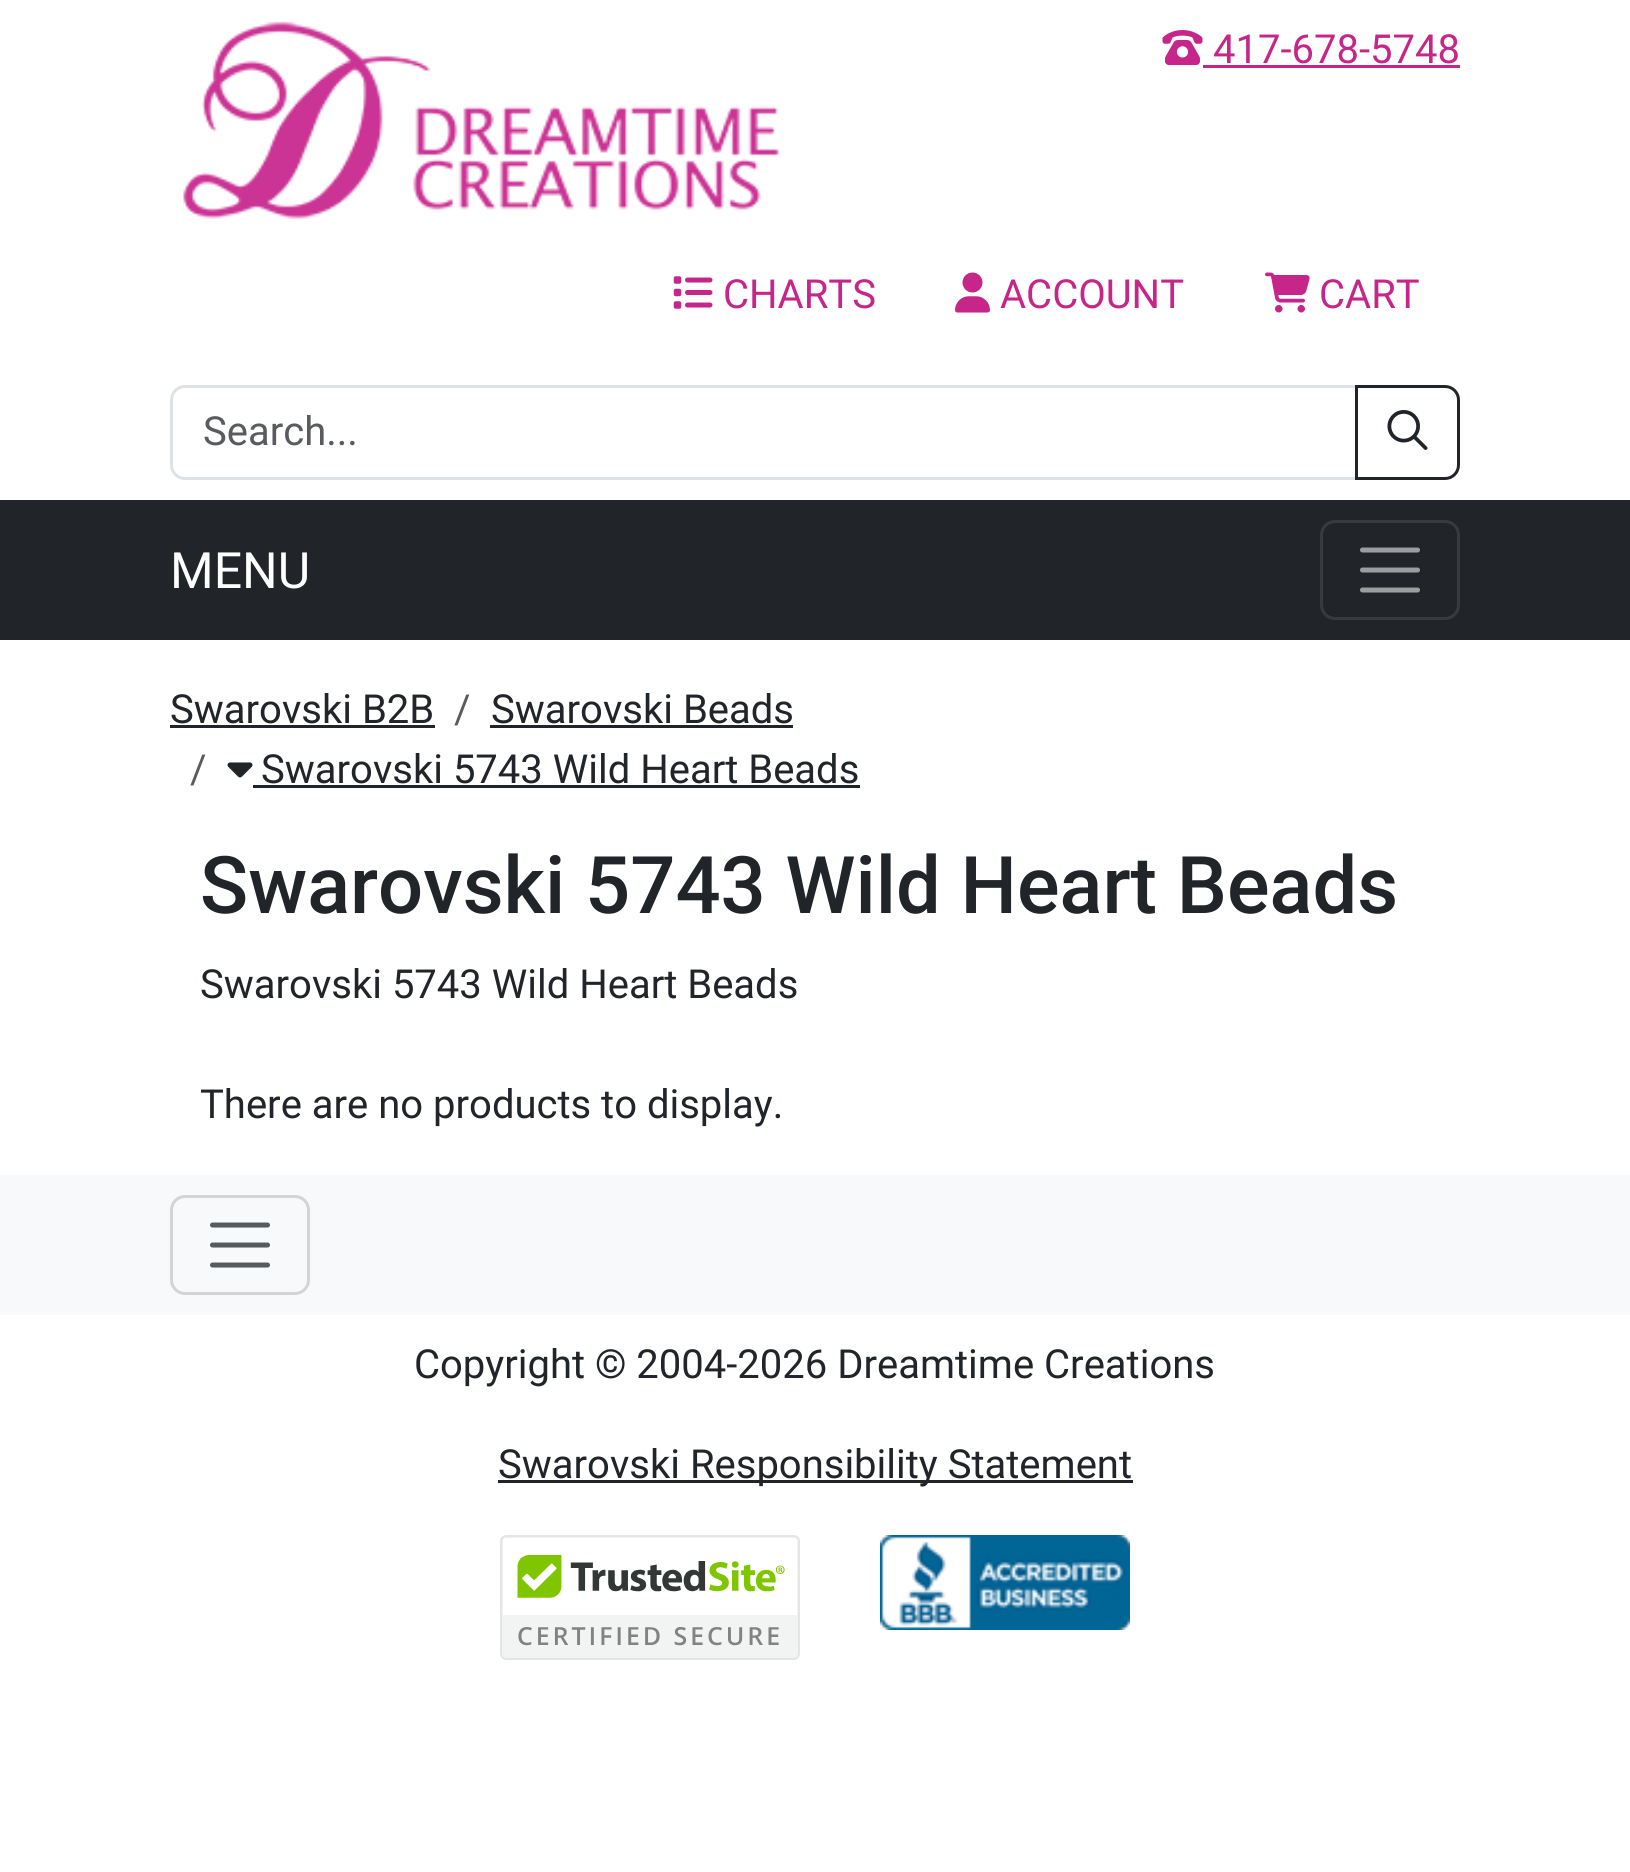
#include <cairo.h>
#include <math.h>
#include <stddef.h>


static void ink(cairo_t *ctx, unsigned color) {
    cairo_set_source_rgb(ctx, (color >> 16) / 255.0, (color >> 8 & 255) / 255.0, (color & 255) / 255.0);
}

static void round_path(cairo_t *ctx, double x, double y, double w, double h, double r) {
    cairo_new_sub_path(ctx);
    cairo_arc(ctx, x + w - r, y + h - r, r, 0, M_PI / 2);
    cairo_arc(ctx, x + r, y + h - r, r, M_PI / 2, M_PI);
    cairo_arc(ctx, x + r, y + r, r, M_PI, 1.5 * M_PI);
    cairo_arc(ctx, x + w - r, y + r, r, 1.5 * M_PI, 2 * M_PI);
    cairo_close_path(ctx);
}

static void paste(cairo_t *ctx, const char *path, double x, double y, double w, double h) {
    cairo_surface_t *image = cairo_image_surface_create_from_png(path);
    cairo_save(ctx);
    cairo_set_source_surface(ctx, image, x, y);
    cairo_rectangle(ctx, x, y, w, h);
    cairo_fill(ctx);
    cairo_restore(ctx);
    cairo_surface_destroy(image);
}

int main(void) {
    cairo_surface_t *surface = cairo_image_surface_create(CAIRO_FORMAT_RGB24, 1630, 1872);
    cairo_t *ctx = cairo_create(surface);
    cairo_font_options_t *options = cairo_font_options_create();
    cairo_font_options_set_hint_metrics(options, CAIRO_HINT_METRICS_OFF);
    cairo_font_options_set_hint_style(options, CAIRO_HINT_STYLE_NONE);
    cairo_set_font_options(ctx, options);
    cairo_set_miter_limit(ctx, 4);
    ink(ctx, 0xFFFFFF);
    cairo_paint(ctx);
    paste(ctx, "media/1.png", 183, 21, 596, 198);
    paste(ctx, "media/2.png", 1162, 30, 41, 35);
    cairo_select_font_face(ctx, "Roboto", CAIRO_FONT_SLANT_NORMAL, CAIRO_FONT_WEIGHT_NORMAL);
    cairo_set_font_size(ctx, 40);
    ink(ctx, 0xC62589);
    cairo_move_to(ctx, 1213, 63);
    cairo_show_text(ctx, "417-678-5748");
    cairo_rectangle(ctx, 1203, 65, 257, 3);
    cairo_fill(ctx);
    paste(ctx, "media/3.png", 673, 276, 40, 33);
    cairo_move_to(ctx, 723, 308);
    cairo_show_text(ctx, "CHARTS");
    paste(ctx, "media/4.png", 955, 272, 35, 41);
    cairo_move_to(ctx, 1000, 308);
    cairo_show_text(ctx, "ACCOUNT");
    paste(ctx, "media/5.png", 1265, 272, 45, 41);
    cairo_move_to(ctx, 1319, 308);
    cairo_show_text(ctx, "CART");
    cairo_new_path(ctx);
    cairo_move_to(ctx, 185, 386.5);
    cairo_line_to(ctx, 1356.5, 386.5);
    cairo_line_to(ctx, 1356.5, 478.5);
    cairo_line_to(ctx, 185, 478.5);
    cairo_curve_to(ctx, 177.5, 478.5, 171.5, 472.5, 171.5, 465);
    cairo_line_to(ctx, 171.5, 400);
    cairo_curve_to(ctx, 171.5, 392.5, 177.5, 386.5, 185, 386.5);
    cairo_close_path(ctx);
    ink(ctx, 0xDEE2E6);
    cairo_set_line_width(ctx, 3);
    cairo_stroke(ctx);
    ink(ctx, 0x595C5F);
    cairo_move_to(ctx, 203, 445);
    cairo_show_text(ctx, "Search...");
    cairo_new_path(ctx);
    cairo_move_to(ctx, 1356.5, 386.5);
    cairo_line_to(ctx, 1445, 386.5);
    cairo_curve_to(ctx, 1452.5, 386.5, 1458.5, 392.5, 1458.5, 400);
    cairo_line_to(ctx, 1458.5, 465);
    cairo_curve_to(ctx, 1458.5, 472.5, 1452.5, 478.5, 1445, 478.5);
    cairo_line_to(ctx, 1356.5, 478.5);
    cairo_close_path(ctx);
    ink(ctx, 0x212529);
    cairo_stroke(ctx);
    paste(ctx, "media/6.png", 1387, 410, 41, 40);
    cairo_rectangle(ctx, 0, 500, 1630, 140);
    cairo_fill(ctx);
    cairo_set_font_size(ctx, 50);
    ink(ctx, 0xFFFFFF);
    cairo_move_to(ctx, 170, 588);
    cairo_show_text(ctx, "MENU");
    round_path(ctx, 1321.5, 521.5, 137, 97, 13.5);
    ink(ctx, 0x373B3E);
    cairo_stroke(ctx);
    cairo_new_path(ctx);
    cairo_move_to(ctx, 1362.5, 550);
    cairo_line_to(ctx, 1417.5, 550);
    cairo_move_to(ctx, 1362.5, 570);
    cairo_line_to(ctx, 1417.5, 570);
    cairo_move_to(ctx, 1362.5, 590);
    cairo_line_to(ctx, 1417.5, 590);
    ink(ctx, 0x9B9D9F);
    cairo_set_line_width(ctx, 5);
    cairo_set_line_cap(ctx, CAIRO_LINE_CAP_ROUND);
    cairo_stroke(ctx);
    cairo_set_font_size(ctx, 40);
    ink(ctx, 0x212529);
    cairo_move_to(ctx, 170, 723);
    cairo_show_text(ctx, "Swarovski B2B");
    cairo_rectangle(ctx, 170, 725, 265, 3);
    cairo_fill(ctx);
    ink(ctx, 0x595C5F);
    cairo_move_to(ctx, 454, 723);
    cairo_show_text(ctx, "/");
    ink(ctx, 0x212529);
    cairo_move_to(ctx, 491, 723);
    cairo_show_text(ctx, "Swarovski Beads");
    cairo_rectangle(ctx, 490, 725, 303, 3);
    cairo_fill(ctx);
    ink(ctx, 0x595C5F);
    cairo_move_to(ctx, 190, 783);
    cairo_show_text(ctx, "/");
    paste(ctx, "media/7.png", 227, 762, 26, 16);
    ink(ctx, 0x212529);
    cairo_move_to(ctx, 261, 783);
    cairo_show_text(ctx, "Swarovski 5743 Wild Heart Beads");
    cairo_rectangle(ctx, 253, 785, 607, 3);
    cairo_fill(ctx);
    cairo_select_font_face(ctx, "Roboto Medium", CAIRO_FONT_SLANT_NORMAL, CAIRO_FONT_WEIGHT_NORMAL);
    cairo_set_font_size(ctx, 79.5);
    cairo_move_to(ctx, 200, 913);
    cairo_show_text(ctx, "Swarovski 5743 Wild Heart Beads");
    cairo_select_font_face(ctx, "Roboto", CAIRO_FONT_SLANT_NORMAL, CAIRO_FONT_WEIGHT_NORMAL);
    cairo_set_font_size(ctx, 40);
    cairo_move_to(ctx, 200, 998);
    cairo_show_text(ctx, "Swarovski 5743 Wild Heart Beads");
    cairo_move_to(ctx, 200, 1118);
    cairo_show_text(ctx, "There are no products to display.");
    ink(ctx, 0xF8F9FA);
    cairo_rectangle(ctx, 0, 1175, 1630, 140);
    cairo_fill(ctx);
    round_path(ctx, 171.5, 1196.5, 137, 97, 13.5);
    ink(ctx, 0xD3D4D5);
    cairo_set_line_width(ctx, 3);
    cairo_set_line_cap(ctx, CAIRO_LINE_CAP_BUTT);
    cairo_stroke(ctx);
    cairo_new_path(ctx);
    cairo_move_to(ctx, 212.5, 1225);
    cairo_line_to(ctx, 267.5, 1225);
    cairo_move_to(ctx, 212.5, 1245);
    cairo_line_to(ctx, 267.5, 1245);
    cairo_move_to(ctx, 212.5, 1265);
    cairo_line_to(ctx, 267.5, 1265);
    ink(ctx, 0x575A5D);
    cairo_set_line_width(ctx, 5);
    cairo_set_line_cap(ctx, CAIRO_LINE_CAP_ROUND);
    cairo_stroke(ctx);
    ink(ctx, 0x212529);
    cairo_move_to(ctx, 414, 1378);
    cairo_show_text(ctx, "Copyright © 2004-2026 Dreamtime Creations");
    cairo_rectangle(ctx, 498, 1480, 635, 3);
    cairo_fill(ctx);
    cairo_move_to(ctx, 498, 1478);
    cairo_show_text(ctx, "Swarovski Responsibility Statement");
    paste(ctx, "media/8.png", 500, 1535, 300, 125);
    paste(ctx, "media/9.png", 880, 1535, 250, 95);
    cairo_surface_write_to_png(surface, "image.png");
    cairo_font_options_destroy(options);
    cairo_destroy(ctx);
    cairo_surface_destroy(surface);
    return 0;
}
